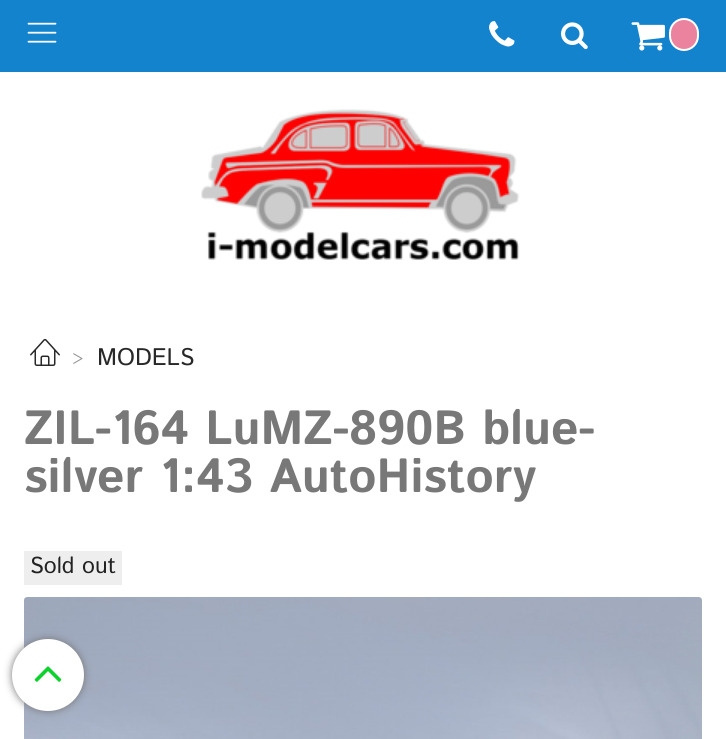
#include <cairo.h>
#include <math.h>
#include <stddef.h>


static void ink(cairo_t *ctx, unsigned color) {
    cairo_set_source_rgb(ctx, (color >> 16) / 255.0, (color >> 8 & 255) / 255.0, (color & 255) / 255.0);
}

static void round_path(cairo_t *ctx, double x, double y, double w, double h, double r) {
    cairo_new_sub_path(ctx);
    cairo_arc(ctx, x + w - r, y + h - r, r, 0, M_PI / 2);
    cairo_arc(ctx, x + r, y + h - r, r, M_PI / 2, M_PI);
    cairo_arc(ctx, x + r, y + r, r, M_PI, 1.5 * M_PI);
    cairo_arc(ctx, x + w - r, y + r, r, 1.5 * M_PI, 2 * M_PI);
    cairo_close_path(ctx);
}

static void blur_box(cairo_t *ctx, double x, double y, double w, double h, double r, double blur, double alpha) {
    cairo_push_group_with_content(ctx, CAIRO_CONTENT_ALPHA);
    cairo_set_operator(ctx, CAIRO_OPERATOR_SOURCE);
    for (int i = 15; i >= -15 && fmin(w, h) + blur * i / 3 > 0; i -= 2) {
        double e = blur * i / 6;
        cairo_set_source_rgba(ctx, 0, 0, 0, alpha * erfc((i - 1) / 8.5) / 2);
        round_path(ctx, x - e, y - e, w + 2 * e, h + 2 * e, fmax(0, fmin(r + e + blur * .6, fmin(w, h) / 2 + e)));
        cairo_fill(ctx);
    }
    cairo_pattern_t *soft = cairo_pop_group(ctx);
    cairo_mask(ctx, soft);
    cairo_pattern_destroy(soft);
}

static void paste(cairo_t *ctx, const char *path, double x, double y, double w, double h) {
    cairo_surface_t *image = cairo_image_surface_create_from_png(path);
    cairo_save(ctx);
    cairo_set_source_surface(ctx, image, x, y);
    cairo_rectangle(ctx, x, y, w, h);
    cairo_fill(ctx);
    cairo_restore(ctx);
    cairo_surface_destroy(image);
}

int main(void) {
    cairo_surface_t *surface = cairo_image_surface_create(CAIRO_FORMAT_RGB24, 726, 739);
    cairo_t *ctx = cairo_create(surface);
    cairo_font_options_t *options = cairo_font_options_create();
    cairo_font_options_set_hint_metrics(options, CAIRO_HINT_METRICS_OFF);
    cairo_font_options_set_hint_style(options, CAIRO_HINT_STYLE_NONE);
    cairo_set_font_options(ctx, options);
    cairo_set_miter_limit(ctx, 4);
    ink(ctx, 0xFFFFFF);
    cairo_paint(ctx);
    ink(ctx, 0x1383CD);
    cairo_rectangle(ctx, 0, 0, 726, 72);
    cairo_fill(ctx);
    paste(ctx, "media/1.png", 27, 22, 30, 21);
    paste(ctx, "media/2.png", 489, 21, 26, 26);
    paste(ctx, "media/3.png", 561, 22, 27, 28);
    paste(ctx, "media/4.png", 631, 22, 34, 29);
    ink(ctx, 0xEB839F);
    round_path(ctx, 670, 19, 28, 31, 14);
    cairo_fill_preserve(ctx);
    ink(ctx, 0xFFFFFF);
    cairo_stroke(ctx);
    paste(ctx, "media/5.png", 201, 109, 319, 151);
    paste(ctx, "media/6.png", 30, 338, 30, 28);
    cairo_select_font_face(ctx, "Istok Web", CAIRO_FONT_SLANT_NORMAL, CAIRO_FONT_WEIGHT_NORMAL);
    cairo_set_font_size(ctx, 18);
    ink(ctx, 0x939393);
    cairo_move_to(ctx, 72, 365);
    cairo_show_text(ctx, ">");
    cairo_set_font_size(ctx, 24);
    ink(ctx, 0x282828);
    cairo_move_to(ctx, 97, 365);
    cairo_show_text(ctx, "MODELS");
    cairo_select_font_face(ctx, "Istok Web", CAIRO_FONT_SLANT_NORMAL, CAIRO_FONT_WEIGHT_BOLD);
    cairo_set_font_size(ctx, 48);
    ink(ctx, 0x787878);
    cairo_move_to(ctx, 24, 444);
    cairo_show_text(ctx, "ZIL-164 LuMZ-890B blue-");
    cairo_move_to(ctx, 24, 492);
    cairo_show_text(ctx, "silver 1:43 AutoHistory");
    ink(ctx, 0xEEEEEE);
    cairo_rectangle(ctx, 24, 551, 98, 34);
    cairo_fill(ctx);
    cairo_select_font_face(ctx, "Istok Web", CAIRO_FONT_SLANT_NORMAL, CAIRO_FONT_WEIGHT_NORMAL);
    cairo_set_font_size(ctx, 23);
    ink(ctx, 0x222222);
    cairo_move_to(ctx, 30, 573);
    cairo_show_text(ctx, "Sold out");
    paste(ctx, "media/7.png", 24, 597, 678, 142);
    ink(ctx, 0x777777);
    blur_box(ctx, 12, 639, 72, 72, 36, 4, 1);
    ink(ctx, 0xFFFFFF);
    cairo_arc(ctx, 48, 675, 36, 0, 2 * M_PI);
    cairo_fill(ctx);
    paste(ctx, "media/8.png", 34, 666, 28, 16);
    cairo_surface_write_to_png(surface, "image.png");
    cairo_font_options_destroy(options);
    cairo_destroy(ctx);
    cairo_surface_destroy(surface);
    return 0;
}
